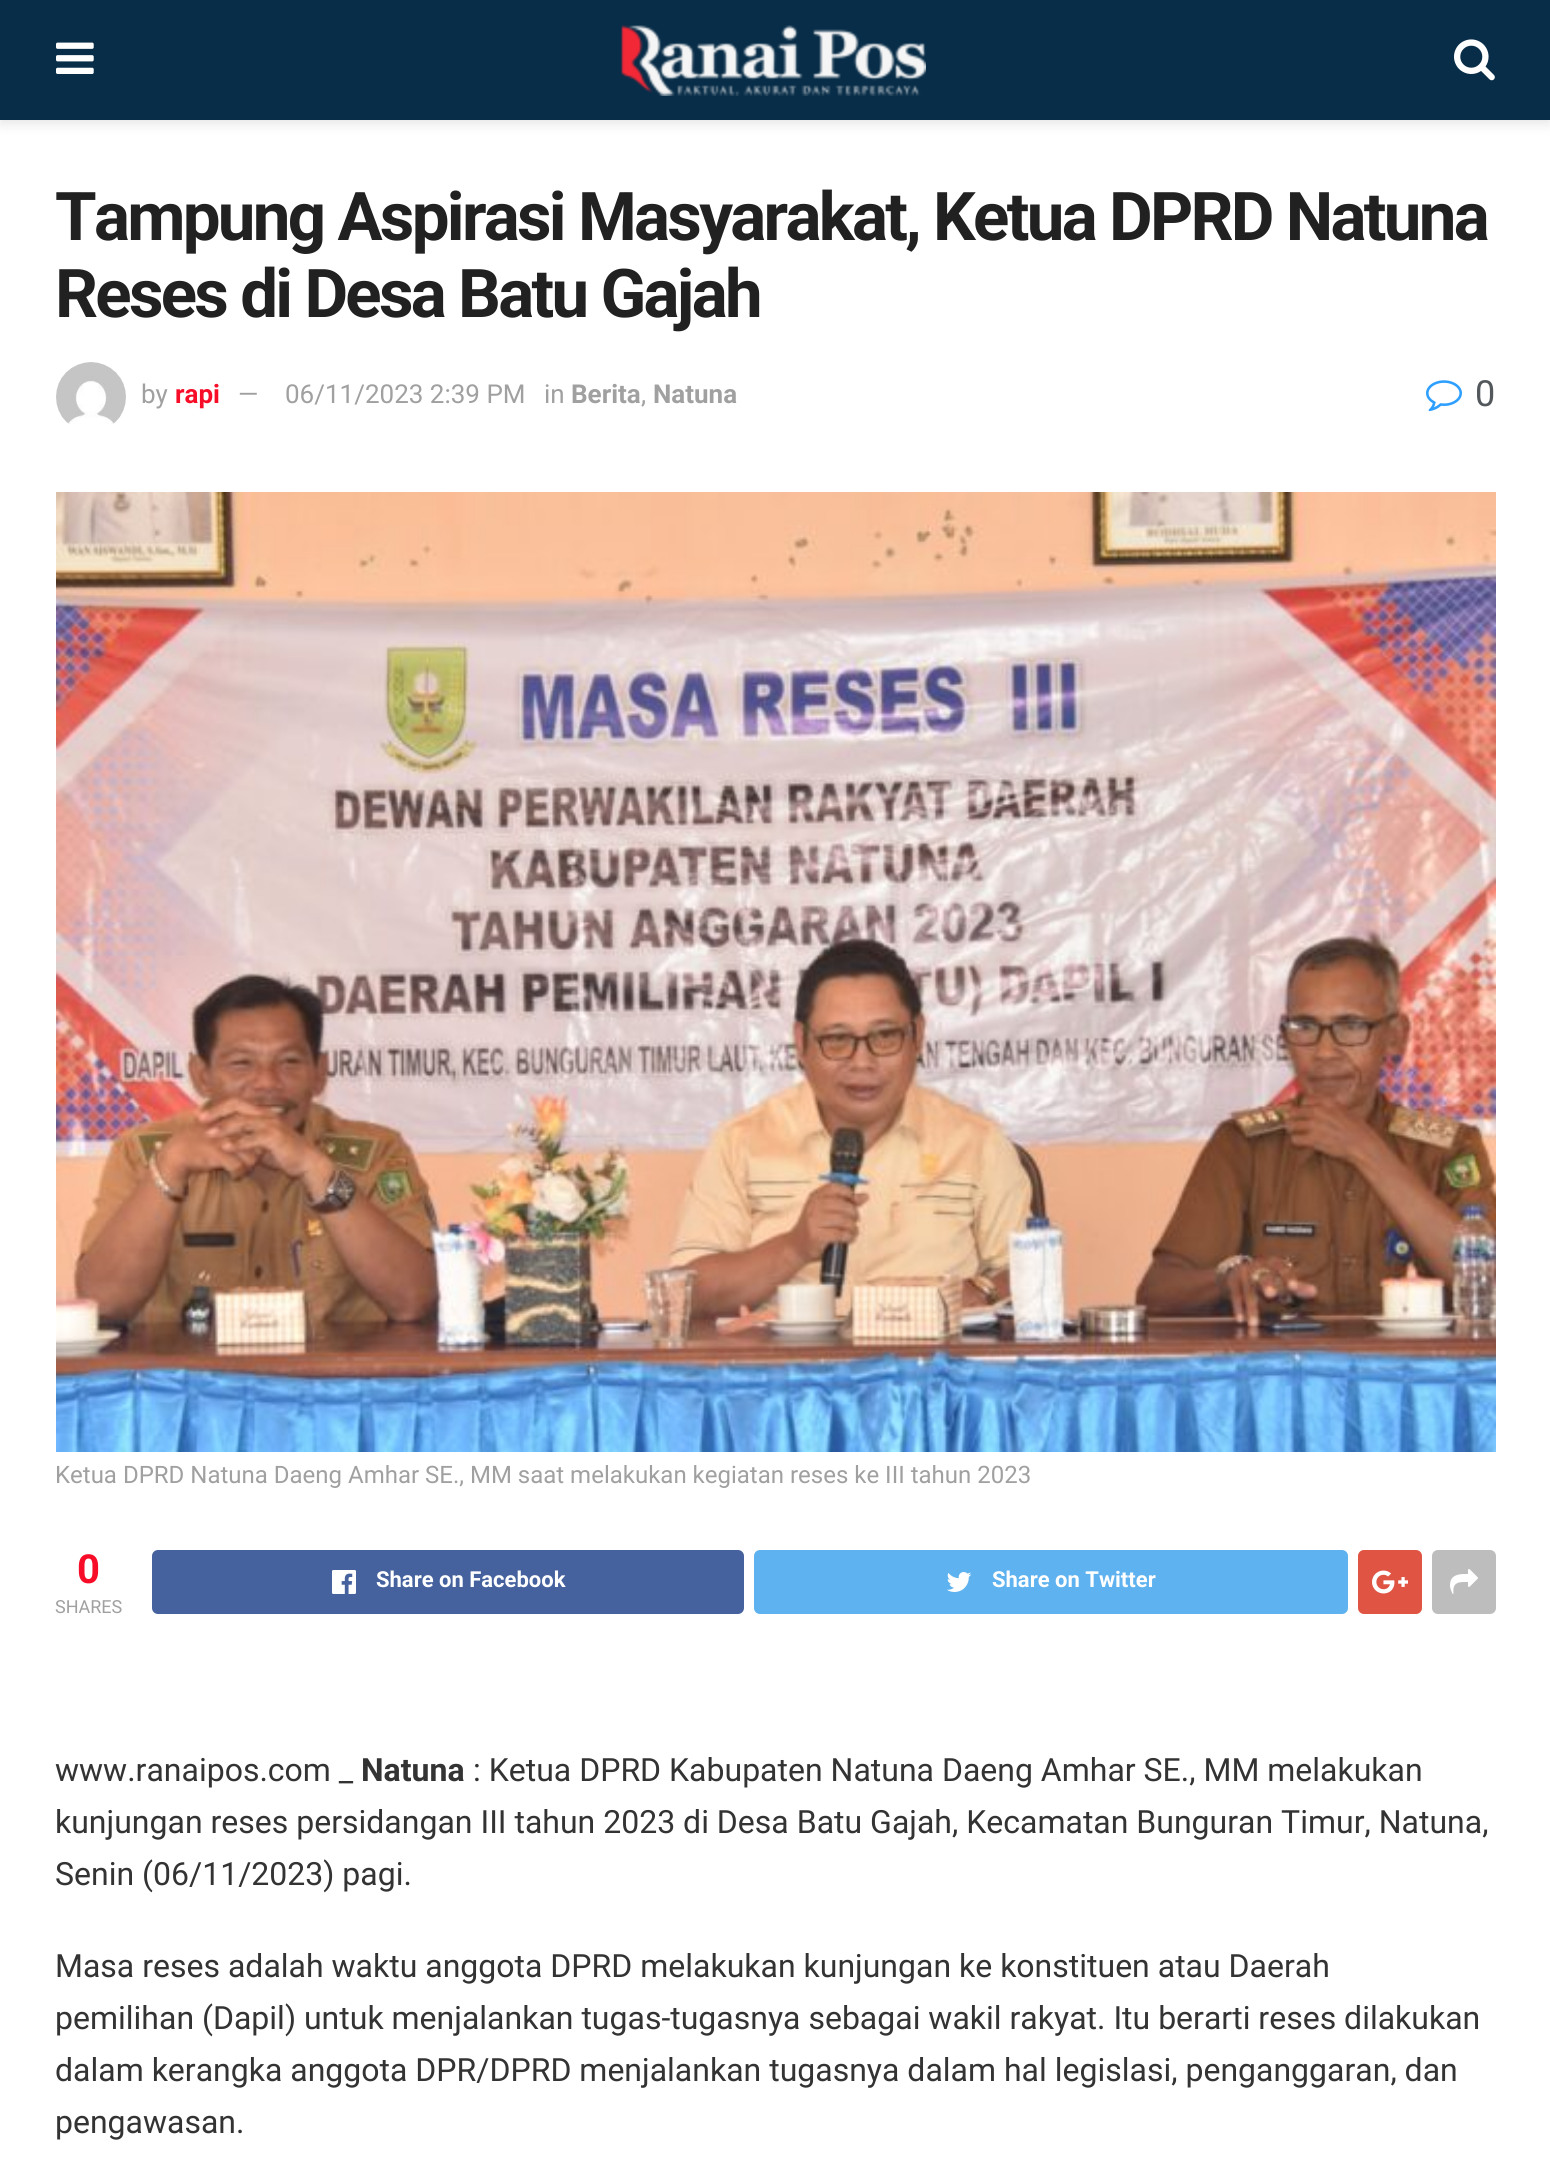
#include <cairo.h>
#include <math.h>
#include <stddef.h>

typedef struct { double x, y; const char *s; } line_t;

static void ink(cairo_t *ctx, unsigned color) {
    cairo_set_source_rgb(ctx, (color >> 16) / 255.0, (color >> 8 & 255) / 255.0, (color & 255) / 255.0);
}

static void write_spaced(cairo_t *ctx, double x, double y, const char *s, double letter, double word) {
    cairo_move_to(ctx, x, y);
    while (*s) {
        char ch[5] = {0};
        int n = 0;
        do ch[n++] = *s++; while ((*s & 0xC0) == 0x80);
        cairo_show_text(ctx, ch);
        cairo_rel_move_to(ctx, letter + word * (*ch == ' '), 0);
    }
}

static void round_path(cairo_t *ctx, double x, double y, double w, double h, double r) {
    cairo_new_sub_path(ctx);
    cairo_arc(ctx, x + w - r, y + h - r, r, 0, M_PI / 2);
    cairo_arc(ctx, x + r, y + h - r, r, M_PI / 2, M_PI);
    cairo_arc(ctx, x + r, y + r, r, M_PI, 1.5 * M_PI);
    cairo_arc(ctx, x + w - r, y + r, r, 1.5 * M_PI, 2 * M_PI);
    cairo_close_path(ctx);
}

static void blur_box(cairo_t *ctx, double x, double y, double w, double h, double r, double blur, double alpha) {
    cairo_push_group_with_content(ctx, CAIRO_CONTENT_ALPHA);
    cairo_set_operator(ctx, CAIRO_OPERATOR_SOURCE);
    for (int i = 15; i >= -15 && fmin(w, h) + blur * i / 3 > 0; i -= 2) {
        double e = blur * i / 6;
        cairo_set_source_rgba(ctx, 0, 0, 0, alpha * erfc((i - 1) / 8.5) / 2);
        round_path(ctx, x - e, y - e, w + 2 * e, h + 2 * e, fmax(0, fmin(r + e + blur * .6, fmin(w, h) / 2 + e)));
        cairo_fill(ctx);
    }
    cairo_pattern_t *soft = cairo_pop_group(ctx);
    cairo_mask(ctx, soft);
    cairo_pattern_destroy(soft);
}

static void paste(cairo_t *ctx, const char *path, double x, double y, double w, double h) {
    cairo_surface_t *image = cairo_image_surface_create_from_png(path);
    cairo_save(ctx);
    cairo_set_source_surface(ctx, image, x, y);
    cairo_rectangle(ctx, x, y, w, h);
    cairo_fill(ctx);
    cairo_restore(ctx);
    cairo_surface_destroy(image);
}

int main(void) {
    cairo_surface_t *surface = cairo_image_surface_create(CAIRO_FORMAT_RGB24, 1550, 2175);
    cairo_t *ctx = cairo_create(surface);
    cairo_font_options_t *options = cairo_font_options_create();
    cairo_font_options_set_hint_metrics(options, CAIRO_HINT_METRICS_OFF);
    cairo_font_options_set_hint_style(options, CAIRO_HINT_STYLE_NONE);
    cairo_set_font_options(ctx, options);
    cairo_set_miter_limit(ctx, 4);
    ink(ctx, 0xFFFFFF);
    cairo_paint(ctx);
    ink(ctx, 0x000000);
    blur_box(ctx, 0, 4, 1550, 120, 0, 6, 0.1);
    ink(ctx, 0x082D48);
    cairo_rectangle(ctx, 0, 0, 1550, 120);
    cairo_fill(ctx);
    paste(ctx, "media/1.png", 56, 42, 38, 32);
    paste(ctx, "media/2.png", 621, 25, 305, 71);
    paste(ctx, "media/3.png", 1454, 39, 41, 42);
    cairo_select_font_face(ctx, "Roboto", CAIRO_FONT_SLANT_NORMAL, CAIRO_FONT_WEIGHT_BOLD);
    cairo_set_font_size(ctx, 67.2);
    ink(ctx, 0x212121);
    write_spaced(ctx, 55, 240, "Tampung Aspirasi Masyarakat, Ketua DPRD Natuna", -2.7, 0);
    write_spaced(ctx, 55, 317, "Reses di Desa Batu Gajah", -2.7, 0);
    paste(ctx, "media/4.png", 56, 362, 70, 62);
    cairo_select_font_face(ctx, "Roboto", CAIRO_FONT_SLANT_NORMAL, CAIRO_FONT_WEIGHT_NORMAL);
    cairo_set_font_size(ctx, 26);
    ink(ctx, 0xA0A0A0);
    cairo_move_to(ctx, 141, 403);
    cairo_show_text(ctx, "by");
    cairo_select_font_face(ctx, "Roboto", CAIRO_FONT_SLANT_NORMAL, CAIRO_FONT_WEIGHT_BOLD);
    ink(ctx, 0xF70D28);
    cairo_move_to(ctx, 175, 403);
    cairo_show_text(ctx, "rapi");
    cairo_select_font_face(ctx, "Roboto", CAIRO_FONT_SLANT_NORMAL, CAIRO_FONT_WEIGHT_NORMAL);
    ink(ctx, 0xA0A0A0);
    {
        static const line_t items[] = {
            {238, 403, "—"},
            {285, 403, "06/11/2023 2:39 PM"},
            {544, 403, "in"},
        };
        for (size_t i = 0; i < sizeof items / sizeof *items; i++) {
            cairo_move_to(ctx, items[i].x, items[i].y);
            cairo_show_text(ctx, items[i].s);
        }
    }
    cairo_select_font_face(ctx, "Roboto", CAIRO_FONT_SLANT_NORMAL, CAIRO_FONT_WEIGHT_BOLD);
    cairo_move_to(ctx, 571, 403);
    cairo_show_text(ctx, "Berita");
    cairo_select_font_face(ctx, "Roboto", CAIRO_FONT_SLANT_NORMAL, CAIRO_FONT_WEIGHT_NORMAL);
    cairo_move_to(ctx, 641, 403);
    cairo_show_text(ctx, ",");
    cairo_select_font_face(ctx, "Roboto", CAIRO_FONT_SLANT_NORMAL, CAIRO_FONT_WEIGHT_BOLD);
    cairo_move_to(ctx, 653, 403);
    cairo_show_text(ctx, "Natuna");
    paste(ctx, "media/5.png", 1426, 380, 36, 32);
    cairo_select_font_face(ctx, "Roboto", CAIRO_FONT_SLANT_NORMAL, CAIRO_FONT_WEIGHT_NORMAL);
    cairo_set_font_size(ctx, 36);
    ink(ctx, 0x53585C);
    cairo_move_to(ctx, 1475, 406);
    cairo_show_text(ctx, "0");
    paste(ctx, "media/6.png", 56, 492, 1440, 960);
    cairo_set_font_size(ctx, 24);
    ink(ctx, 0xA0A0A0);
    cairo_move_to(ctx, 55, 1483);
    cairo_show_text(ctx, "Ketua DPRD Natuna Daeng Amhar SE., MM saat melakukan kegiatan reses ke III tahun 2023");
    cairo_select_font_face(ctx, "Roboto", CAIRO_FONT_SLANT_NORMAL, CAIRO_FONT_WEIGHT_BOLD);
    cairo_set_font_size(ctx, 40);
    ink(ctx, 0xF70D28);
    cairo_move_to(ctx, 77, 1583);
    cairo_show_text(ctx, "0");
    cairo_select_font_face(ctx, "Roboto", CAIRO_FONT_SLANT_NORMAL, CAIRO_FONT_WEIGHT_NORMAL);
    cairo_set_font_size(ctx, 18);
    ink(ctx, 0xA0A0A0);
    cairo_move_to(ctx, 55, 1613);
    cairo_show_text(ctx, "SHARES");
    ink(ctx, 0x45629F);
    round_path(ctx, 152, 1550, 592, 64, 6);
    cairo_fill(ctx);
    paste(ctx, "media/7.png", 332, 1570, 24, 24);
    cairo_select_font_face(ctx, "Roboto", CAIRO_FONT_SLANT_NORMAL, CAIRO_FONT_WEIGHT_BOLD);
    cairo_set_font_size(ctx, 22);
    ink(ctx, 0xFFFFFF);
    cairo_move_to(ctx, 376, 1587);
    cairo_show_text(ctx, "Share on Facebook");
    ink(ctx, 0x5EB2EF);
    round_path(ctx, 754, 1550, 594, 64, 6);
    cairo_fill(ctx);
    paste(ctx, "media/8.png", 946, 1572, 26, 20);
    ink(ctx, 0xFFFFFF);
    cairo_move_to(ctx, 992, 1587);
    cairo_show_text(ctx, "Share on Twitter");
    ink(ctx, 0xDF5443);
    round_path(ctx, 1358, 1550, 64, 64, 6);
    cairo_fill(ctx);
    paste(ctx, "media/9.png", 1372, 1570, 36, 24);
    ink(ctx, 0xBDBDBD);
    round_path(ctx, 1432, 1550, 64, 64, 6);
    cairo_fill(ctx);
    paste(ctx, "media/10.png", 1450, 1569, 28, 25);
    cairo_select_font_face(ctx, "Roboto", CAIRO_FONT_SLANT_NORMAL, CAIRO_FONT_WEIGHT_NORMAL);
    cairo_set_font_size(ctx, 32);
    ink(ctx, 0x333333);
    cairo_move_to(ctx, 55, 1781);
    cairo_show_text(ctx, "www.ranaipos.com _");
    cairo_select_font_face(ctx, "Roboto", CAIRO_FONT_SLANT_NORMAL, CAIRO_FONT_WEIGHT_BOLD);
    cairo_move_to(ctx, 361, 1781);
    cairo_show_text(ctx, "Natuna");
    cairo_select_font_face(ctx, "Roboto", CAIRO_FONT_SLANT_NORMAL, CAIRO_FONT_WEIGHT_NORMAL);
    {
        static const line_t items[] = {
            {473, 1781, ": Ketua DPRD Kabupaten Natuna Daeng Amhar SE., MM melakukan"},
            {55, 1833, "kunjungan reses persidangan III tahun 2023 di Desa Batu Gajah, Kecamatan Bunguran Timur, Natuna,"},
            {55, 1885, "Senin (06/11/2023) pagi."},
            {55, 1977, "Masa reses adalah waktu anggota DPRD melakukan kunjungan ke konstituen atau Daerah"},
            {55, 2029, "pemilihan (Dapil) untuk menjalankan tugas-tugasnya sebagai wakil rakyat. Itu berarti reses dilakukan"},
            {55, 2081, "dalam kerangka anggota DPR/DPRD menjalankan tugasnya dalam hal legislasi, penganggaran, dan"},
            {55, 2133, "pengawasan."},
        };
        for (size_t i = 0; i < sizeof items / sizeof *items; i++) {
            cairo_move_to(ctx, items[i].x, items[i].y);
            cairo_show_text(ctx, items[i].s);
        }
    }
    cairo_surface_write_to_png(surface, "image.png");
    cairo_font_options_destroy(options);
    cairo_destroy(ctx);
    cairo_surface_destroy(surface);
    return 0;
}
